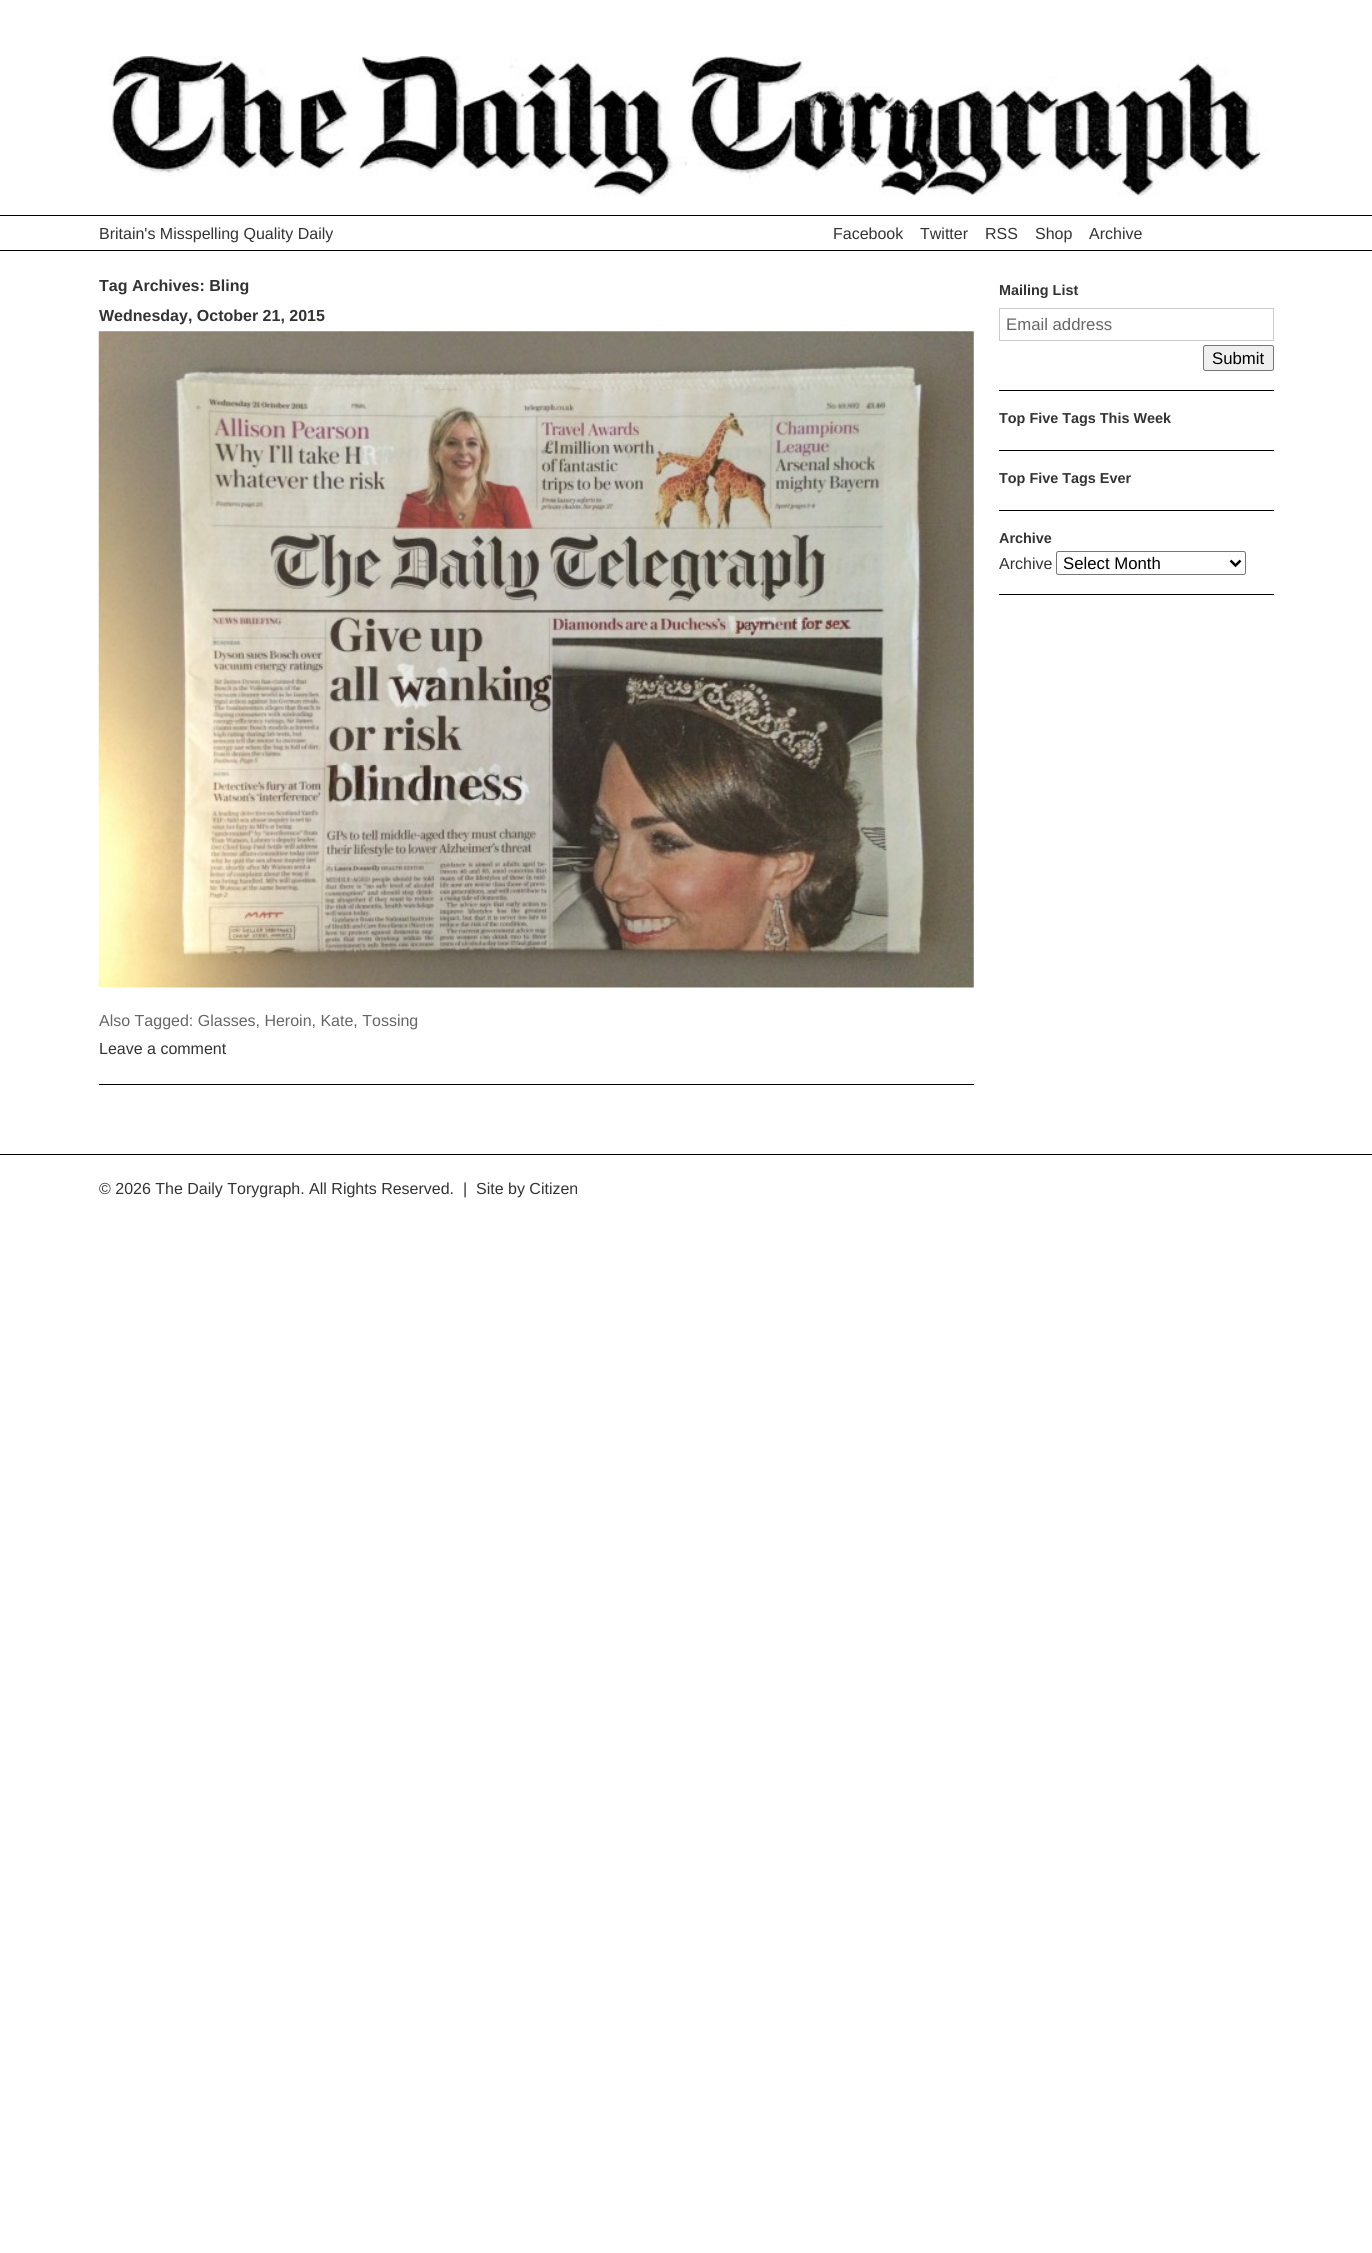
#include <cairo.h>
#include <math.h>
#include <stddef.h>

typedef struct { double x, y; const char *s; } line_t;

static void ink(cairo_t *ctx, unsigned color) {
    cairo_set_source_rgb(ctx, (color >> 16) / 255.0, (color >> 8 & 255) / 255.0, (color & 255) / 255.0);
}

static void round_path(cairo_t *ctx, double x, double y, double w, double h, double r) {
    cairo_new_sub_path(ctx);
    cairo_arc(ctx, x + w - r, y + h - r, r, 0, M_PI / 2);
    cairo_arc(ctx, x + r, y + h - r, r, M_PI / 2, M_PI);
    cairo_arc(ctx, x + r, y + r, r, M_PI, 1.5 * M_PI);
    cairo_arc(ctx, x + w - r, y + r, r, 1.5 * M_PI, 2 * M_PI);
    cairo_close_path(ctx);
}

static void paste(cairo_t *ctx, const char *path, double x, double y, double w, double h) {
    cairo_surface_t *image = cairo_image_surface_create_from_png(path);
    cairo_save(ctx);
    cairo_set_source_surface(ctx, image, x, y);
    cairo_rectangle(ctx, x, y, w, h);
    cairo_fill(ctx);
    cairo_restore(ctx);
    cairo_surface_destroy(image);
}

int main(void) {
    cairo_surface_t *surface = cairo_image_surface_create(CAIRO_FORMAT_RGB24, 1372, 2253);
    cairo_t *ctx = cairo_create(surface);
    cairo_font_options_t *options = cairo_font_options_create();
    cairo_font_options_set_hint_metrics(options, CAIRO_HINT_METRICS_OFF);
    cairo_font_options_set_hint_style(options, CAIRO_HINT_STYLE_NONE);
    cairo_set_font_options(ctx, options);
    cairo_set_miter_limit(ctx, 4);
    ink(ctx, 0xFFFFFF);
    cairo_paint(ctx);
    ink(ctx, 0x000000);
    cairo_rectangle(ctx, 0, 250, 1372, 1);
    cairo_fill(ctx);
    paste(ctx, "media/1.png", 109, 56, 1157, 141);
    paste(ctx, "media/2.png", 140, 56, 591, 1);
    cairo_rectangle(ctx, 0, 215, 1372, 1);
    cairo_fill(ctx);
    cairo_select_font_face(ctx, "Liberation Sans", CAIRO_FONT_SLANT_NORMAL, CAIRO_FONT_WEIGHT_NORMAL);
    cairo_set_font_size(ctx, 16);
    ink(ctx, 0x333333);
    {
        static const line_t items[] = {
            {99, 239, "Britain's Misspelling Quality Daily"},
            {833, 239, "Facebook"},
            {920, 239, "Twitter"},
            {985, 239, "RSS"},
            {1035, 239, "Shop"},
            {1089, 239, "Archive"},
        };
        for (size_t i = 0; i < sizeof items / sizeof *items; i++) {
            cairo_move_to(ctx, items[i].x, items[i].y);
            cairo_show_text(ctx, items[i].s);
        }
    }
    cairo_select_font_face(ctx, "Liberation Sans", CAIRO_FONT_SLANT_NORMAL, CAIRO_FONT_WEIGHT_BOLD);
    cairo_move_to(ctx, 99, 291);
    cairo_show_text(ctx, "Tag Archives: Bling");
    ink(ctx, 0x000000);
    cairo_rectangle(ctx, 99, 1084, 875, 1);
    cairo_fill(ctx);
    ink(ctx, 0x333333);
    cairo_move_to(ctx, 99, 321);
    cairo_show_text(ctx, "Wednesday, October 21, 2015");
    paste(ctx, "media/3.png", 98, 331, 876, 657);
    cairo_select_font_face(ctx, "Liberation Sans", CAIRO_FONT_SLANT_NORMAL, CAIRO_FONT_WEIGHT_NORMAL);
    ink(ctx, 0x666666);
    cairo_move_to(ctx, 99, 1026);
    cairo_show_text(ctx, "Also Tagged: Glasses, Heroin, Kate, Tossing");
    ink(ctx, 0x333333);
    cairo_move_to(ctx, 99, 1054);
    cairo_show_text(ctx, "Leave a comment");
    ink(ctx, 0x000000);
    cairo_rectangle(ctx, 999, 390, 275, 1);
    cairo_fill(ctx);
    cairo_select_font_face(ctx, "Liberation Sans", CAIRO_FONT_SLANT_NORMAL, CAIRO_FONT_WEIGHT_BOLD);
    cairo_set_font_size(ctx, 14.4);
    ink(ctx, 0x333333);
    cairo_move_to(ctx, 999, 295);
    cairo_show_text(ctx, "Mailing List");
    cairo_rectangle(ctx, 999.5, 308.5, 274, 32);
    ink(ctx, 0xCCCCCC);
    cairo_set_line_width(ctx, 1);
    cairo_stroke(ctx);
    cairo_select_font_face(ctx, "Liberation Sans", CAIRO_FONT_SLANT_NORMAL, CAIRO_FONT_WEIGHT_NORMAL);
    cairo_set_font_size(ctx, 16.75);
    ink(ctx, 0x666666);
    cairo_move_to(ctx, 1006, 330);
    cairo_show_text(ctx, "Email address");
    ink(ctx, 0xEFEFEF);
    round_path(ctx, 1203.5, 345.5, 70, 25, 2);
    cairo_fill_preserve(ctx);
    ink(ctx, 0x767676);
    cairo_stroke(ctx);
    ink(ctx, 0x000000);
    cairo_move_to(ctx, 1212, 364);
    cairo_show_text(ctx, "Submit");
    cairo_rectangle(ctx, 999, 450, 275, 1);
    cairo_fill(ctx);
    cairo_select_font_face(ctx, "Liberation Sans", CAIRO_FONT_SLANT_NORMAL, CAIRO_FONT_WEIGHT_BOLD);
    cairo_set_font_size(ctx, 14.4);
    ink(ctx, 0x333333);
    cairo_move_to(ctx, 999, 423);
    cairo_show_text(ctx, "Top Five Tags This Week");
    ink(ctx, 0x000000);
    cairo_rectangle(ctx, 999, 510, 275, 1);
    cairo_fill(ctx);
    ink(ctx, 0x333333);
    cairo_move_to(ctx, 999, 483);
    cairo_show_text(ctx, "Top Five Tags Ever");
    ink(ctx, 0x000000);
    cairo_rectangle(ctx, 999, 594, 275, 1);
    cairo_fill(ctx);
    ink(ctx, 0x333333);
    cairo_move_to(ctx, 999, 543);
    cairo_show_text(ctx, "Archive");
    cairo_select_font_face(ctx, "Liberation Sans", CAIRO_FONT_SLANT_NORMAL, CAIRO_FONT_WEIGHT_NORMAL);
    cairo_set_font_size(ctx, 16);
    cairo_move_to(ctx, 999, 569);
    cairo_show_text(ctx, "Archive");
    round_path(ctx, 1056.5, 551.5, 189, 23, 2);
    ink(ctx, 0x767676);
    cairo_stroke(ctx);
    cairo_new_path(ctx);
    cairo_move_to(ctx, 1230.5, 560.5);
    cairo_line_to(ctx, 1235.5, 565.5);
    cairo_line_to(ctx, 1240.5, 560.5);
    ink(ctx, 0x000000);
    cairo_set_line_width(ctx, 2.5);
    cairo_stroke(ctx);
    cairo_set_font_size(ctx, 16.75);
    cairo_move_to(ctx, 1063, 569);
    cairo_show_text(ctx, "Select Month");
    cairo_rectangle(ctx, 0, 1154, 1372, 1);
    cairo_fill(ctx);
    cairo_set_font_size(ctx, 16);
    ink(ctx, 0x333333);
    cairo_move_to(ctx, 99, 1194);
    cairo_show_text(ctx, "© 2026 The Daily Torygraph. All Rights Reserved.  |  Site by Citizen");
    cairo_surface_write_to_png(surface, "image.png");
    cairo_font_options_destroy(options);
    cairo_destroy(ctx);
    cairo_surface_destroy(surface);
    return 0;
}
